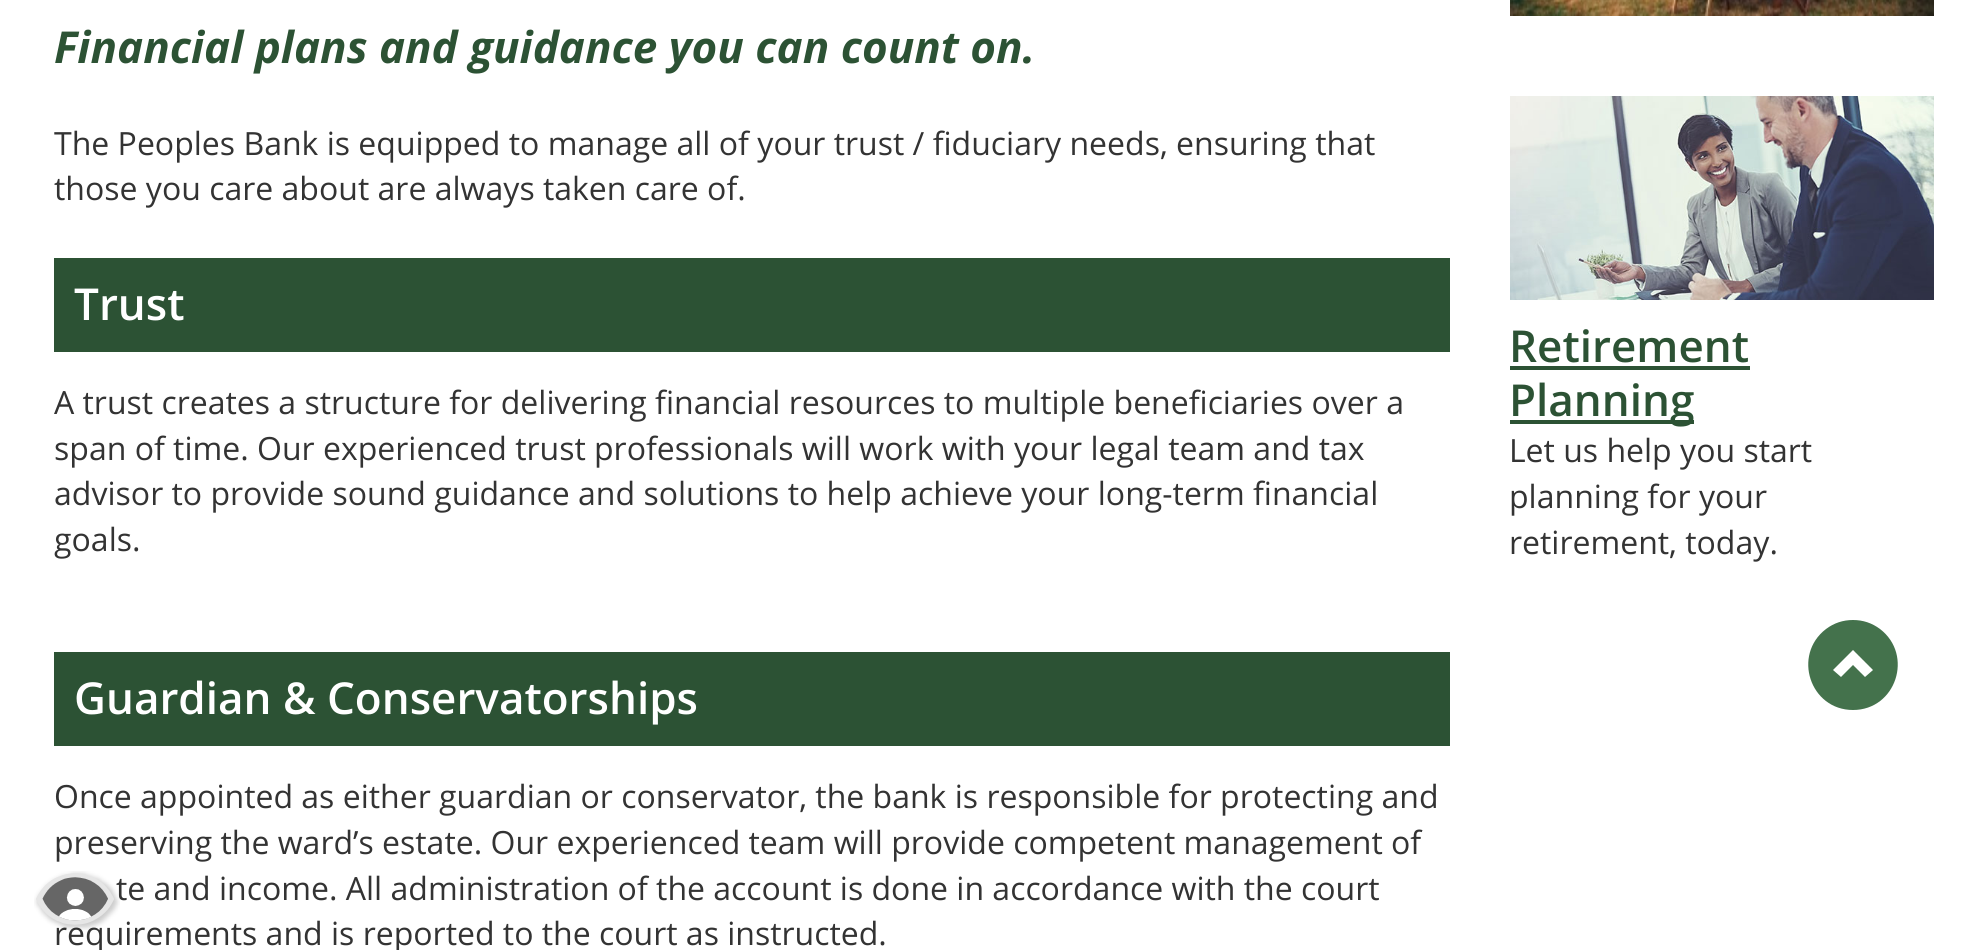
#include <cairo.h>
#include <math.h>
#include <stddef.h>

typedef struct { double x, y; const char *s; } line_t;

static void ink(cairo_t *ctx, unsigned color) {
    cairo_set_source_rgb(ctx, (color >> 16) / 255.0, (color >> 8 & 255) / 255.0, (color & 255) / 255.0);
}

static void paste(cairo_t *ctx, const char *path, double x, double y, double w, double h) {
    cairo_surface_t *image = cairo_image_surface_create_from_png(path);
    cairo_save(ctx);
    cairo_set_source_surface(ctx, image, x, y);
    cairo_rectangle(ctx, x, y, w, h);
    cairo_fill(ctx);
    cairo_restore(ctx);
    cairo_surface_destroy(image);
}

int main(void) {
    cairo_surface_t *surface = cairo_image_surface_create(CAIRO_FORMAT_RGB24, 1988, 950);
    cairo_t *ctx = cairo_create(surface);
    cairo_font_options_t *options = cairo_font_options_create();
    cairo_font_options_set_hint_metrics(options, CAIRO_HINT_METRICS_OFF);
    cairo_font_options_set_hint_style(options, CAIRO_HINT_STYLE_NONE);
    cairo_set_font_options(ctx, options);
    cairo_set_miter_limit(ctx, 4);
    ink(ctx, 0xFFFFFF);
    cairo_paint(ctx);
    cairo_select_font_face(ctx, "Open Sans", CAIRO_FONT_SLANT_ITALIC, CAIRO_FONT_WEIGHT_BOLD);
    cairo_set_font_size(ctx, 44);
    ink(ctx, 0x2C5234);
    cairo_move_to(ctx, 54, 63);
    cairo_show_text(ctx, "Financial plans and guidance you can count on.");
    cairo_select_font_face(ctx, "Open Sans", CAIRO_FONT_SLANT_NORMAL, CAIRO_FONT_WEIGHT_NORMAL);
    cairo_set_font_size(ctx, 32);
    ink(ctx, 0x333333);
    cairo_move_to(ctx, 54, 155);
    cairo_show_text(ctx, "The Peoples Bank is equipped to manage all of your trust / fiduciary needs, ensuring that");
    cairo_move_to(ctx, 54, 200);
    cairo_show_text(ctx, "those you care about are always taken care of.");
    ink(ctx, 0x2C5234);
    cairo_rectangle(ctx, 54, 258, 1396, 94);
    cairo_fill(ctx);
    cairo_select_font_face(ctx, "Open Sans SemiBold", CAIRO_FONT_SLANT_NORMAL, CAIRO_FONT_WEIGHT_NORMAL);
    cairo_set_font_size(ctx, 44);
    ink(ctx, 0xFFFFFF);
    cairo_move_to(ctx, 74, 320);
    cairo_show_text(ctx, "Trust");
    cairo_select_font_face(ctx, "Open Sans", CAIRO_FONT_SLANT_NORMAL, CAIRO_FONT_WEIGHT_NORMAL);
    cairo_set_font_size(ctx, 32);
    ink(ctx, 0x333333);
    {
        static const line_t items[] = {
            {54, 414, "A trust creates a structure for delivering financial resources to multiple beneficiaries over a"},
            {54, 460, "span of time. Our experienced trust professionals will work with your legal team and tax"},
            {54, 505, "advisor to provide sound guidance and solutions to help achieve your long-term financial"},
            {54, 551, "goals."},
        };
        for (size_t i = 0; i < sizeof items / sizeof *items; i++) {
            cairo_move_to(ctx, items[i].x, items[i].y);
            cairo_show_text(ctx, items[i].s);
        }
    }
    ink(ctx, 0x2C5234);
    cairo_rectangle(ctx, 54, 652, 1396, 94);
    cairo_fill(ctx);
    cairo_select_font_face(ctx, "Open Sans SemiBold", CAIRO_FONT_SLANT_NORMAL, CAIRO_FONT_WEIGHT_NORMAL);
    cairo_set_font_size(ctx, 44);
    ink(ctx, 0xFFFFFF);
    cairo_move_to(ctx, 74, 714);
    cairo_show_text(ctx, "Guardian & Conservatorships");
    cairo_select_font_face(ctx, "Open Sans", CAIRO_FONT_SLANT_NORMAL, CAIRO_FONT_WEIGHT_NORMAL);
    cairo_set_font_size(ctx, 32);
    ink(ctx, 0x333333);
    {
        static const line_t items[] = {
            {54, 808, "Once appointed as either guardian or conservator, the bank is responsible for protecting and"},
            {54, 854, "preserving the ward’s estate. Our experienced team will provide competent management of"},
            {116, 900, "te and income. All administration of the account is done in accordance with the court"},
            {54, 945, "requirements and is reported to the court as instructed."},
        };
        for (size_t i = 0; i < sizeof items / sizeof *items; i++) {
            cairo_move_to(ctx, items[i].x, items[i].y);
            cairo_show_text(ctx, items[i].s);
        }
    }
    paste(ctx, "media/1.png", 1510, 0, 424, 16);
    paste(ctx, "media/2.png", 1510, 96, 424, 204);
    cairo_select_font_face(ctx, "Open Sans SemiBold", CAIRO_FONT_SLANT_NORMAL, CAIRO_FONT_WEIGHT_NORMAL);
    cairo_set_font_size(ctx, 44);
    ink(ctx, 0x2C5234);
    cairo_move_to(ctx, 1509, 362);
    cairo_show_text(ctx, "Retirement");
    cairo_rectangle(ctx, 1510, 366, 240, 4);
    cairo_fill(ctx);
    cairo_rectangle(ctx, 1510, 420, 184, 4);
    cairo_fill(ctx);
    cairo_move_to(ctx, 1509, 416);
    cairo_show_text(ctx, "Planning");
    cairo_select_font_face(ctx, "Open Sans", CAIRO_FONT_SLANT_NORMAL, CAIRO_FONT_WEIGHT_NORMAL);
    cairo_set_font_size(ctx, 32);
    ink(ctx, 0x333333);
    {
        static const line_t items[] = {
            {1509, 462, "Let us help you start"},
            {1509, 508, "planning for your"},
            {1509, 554, "retirement, today."},
        };
        for (size_t i = 0; i < sizeof items / sizeof *items; i++) {
            cairo_move_to(ctx, items[i].x, items[i].y);
            cairo_show_text(ctx, items[i].s);
        }
    }
    ink(ctx, 0x44724C);
    cairo_new_path(ctx);
    cairo_move_to(ctx, 1853, 620);
    cairo_curve_to(ctx, 1843, 620, 1834, 623, 1826, 629);
    cairo_curve_to(ctx, 1792, 655, 1810, 710, 1853, 710);
    cairo_curve_to(ctx, 1896, 710, 1914, 655, 1880, 629);
    cairo_curve_to(ctx, 1872, 623, 1863, 620, 1853, 620);
    cairo_close_path(ctx);
    cairo_move_to(ctx, 1865, 677);
    cairo_line_to(ctx, 1853, 665);
    cairo_line_to(ctx, 1841, 677);
    cairo_line_to(ctx, 1833, 670);
    cairo_line_to(ctx, 1853, 650);
    cairo_line_to(ctx, 1873, 670);
    cairo_close_path(ctx);
    cairo_fill(ctx);
    paste(ctx, "media/3.png", 34, 871, 86, 59);
    cairo_surface_write_to_png(surface, "image.png");
    cairo_font_options_destroy(options);
    cairo_destroy(ctx);
    cairo_surface_destroy(surface);
    return 0;
}
